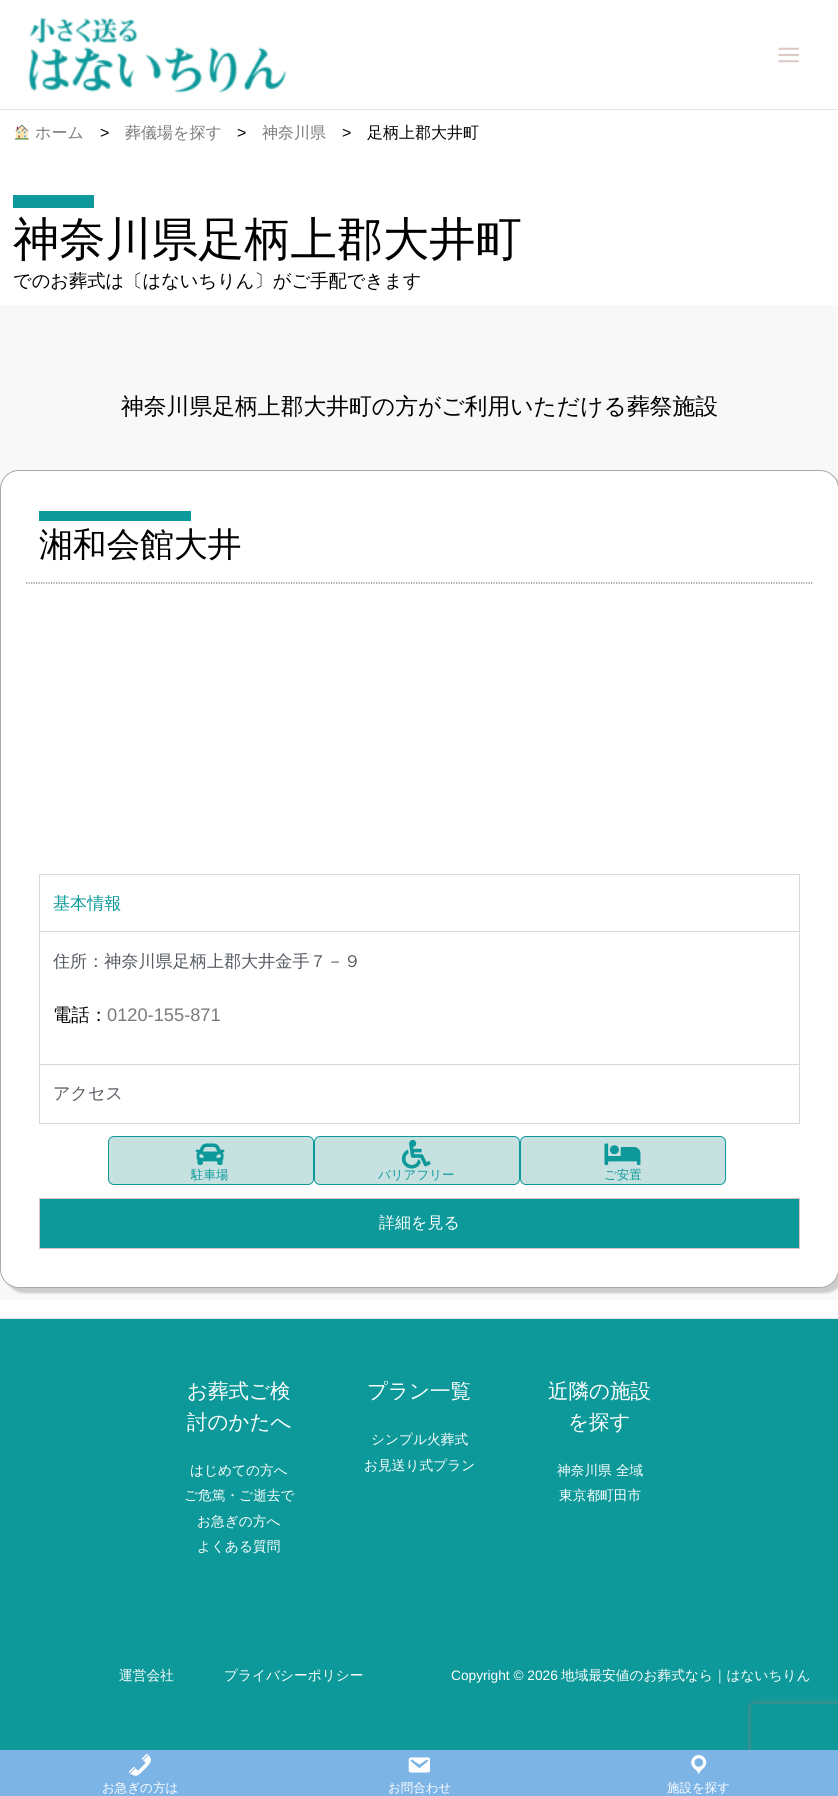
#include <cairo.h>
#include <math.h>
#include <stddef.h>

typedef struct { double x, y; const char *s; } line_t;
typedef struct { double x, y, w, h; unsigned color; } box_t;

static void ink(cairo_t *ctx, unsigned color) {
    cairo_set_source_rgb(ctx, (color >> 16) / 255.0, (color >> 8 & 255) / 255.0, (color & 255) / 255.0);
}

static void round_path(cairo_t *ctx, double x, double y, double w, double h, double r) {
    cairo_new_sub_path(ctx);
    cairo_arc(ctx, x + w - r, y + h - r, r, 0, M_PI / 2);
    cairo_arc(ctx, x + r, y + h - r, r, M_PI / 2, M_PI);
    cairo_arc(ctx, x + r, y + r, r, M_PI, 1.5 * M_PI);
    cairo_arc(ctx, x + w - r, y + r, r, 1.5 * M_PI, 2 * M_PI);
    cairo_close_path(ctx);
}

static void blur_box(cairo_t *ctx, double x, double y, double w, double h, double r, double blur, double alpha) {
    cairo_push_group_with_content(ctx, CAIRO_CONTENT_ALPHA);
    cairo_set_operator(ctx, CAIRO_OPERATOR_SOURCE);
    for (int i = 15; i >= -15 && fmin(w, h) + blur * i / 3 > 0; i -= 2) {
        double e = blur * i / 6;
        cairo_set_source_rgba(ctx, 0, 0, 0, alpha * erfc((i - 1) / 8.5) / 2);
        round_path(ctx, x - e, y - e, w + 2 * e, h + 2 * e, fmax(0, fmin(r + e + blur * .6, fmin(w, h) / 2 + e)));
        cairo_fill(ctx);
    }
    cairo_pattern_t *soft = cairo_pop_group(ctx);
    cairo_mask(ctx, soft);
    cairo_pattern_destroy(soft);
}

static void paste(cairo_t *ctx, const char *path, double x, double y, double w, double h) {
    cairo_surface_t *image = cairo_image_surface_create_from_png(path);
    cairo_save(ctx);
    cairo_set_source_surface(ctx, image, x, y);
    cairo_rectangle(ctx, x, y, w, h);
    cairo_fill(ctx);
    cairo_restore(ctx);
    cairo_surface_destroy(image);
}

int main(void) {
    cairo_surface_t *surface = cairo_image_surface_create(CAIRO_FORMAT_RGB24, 838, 1796);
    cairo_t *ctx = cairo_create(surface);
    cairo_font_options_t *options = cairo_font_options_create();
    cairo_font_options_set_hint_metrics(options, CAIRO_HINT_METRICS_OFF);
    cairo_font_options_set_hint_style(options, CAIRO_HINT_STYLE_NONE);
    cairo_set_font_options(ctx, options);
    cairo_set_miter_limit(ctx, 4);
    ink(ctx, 0xFFFFFF);
    cairo_paint(ctx);
    ink(ctx, 0xE5E5E5);
    cairo_rectangle(ctx, 0, 109, 838, 1);
    cairo_fill(ctx);
    paste(ctx, "media/1.png", 28, 17, 259, 76);
    paste(ctx, "media/2.png", 778, 47, 22, 16);
    paste(ctx, "media/3.png", 14, 124, 15, 16);
    cairo_select_font_face(ctx, "WenQuanYi Zen Hei Medium", CAIRO_FONT_SLANT_NORMAL, CAIRO_FONT_WEIGHT_NORMAL);
    cairo_set_font_size(ctx, 16);
    ink(ctx, 0x7A7A7A);
    cairo_move_to(ctx, 35, 138);
    cairo_show_text(ctx, "ホーム");
    cairo_select_font_face(ctx, "Liberation Sans", CAIRO_FONT_SLANT_NORMAL, CAIRO_FONT_WEIGHT_NORMAL);
    ink(ctx, 0x000000);
    cairo_move_to(ctx, 100, 138);
    cairo_show_text(ctx, ">");
    cairo_select_font_face(ctx, "WenQuanYi Zen Hei Medium", CAIRO_FONT_SLANT_NORMAL, CAIRO_FONT_WEIGHT_NORMAL);
    ink(ctx, 0x7A7A7A);
    cairo_move_to(ctx, 125, 138);
    cairo_show_text(ctx, "葬儀場を探す");
    cairo_select_font_face(ctx, "Liberation Sans", CAIRO_FONT_SLANT_NORMAL, CAIRO_FONT_WEIGHT_NORMAL);
    ink(ctx, 0x000000);
    cairo_move_to(ctx, 237, 138);
    cairo_show_text(ctx, ">");
    cairo_select_font_face(ctx, "WenQuanYi Zen Hei Medium", CAIRO_FONT_SLANT_NORMAL, CAIRO_FONT_WEIGHT_NORMAL);
    ink(ctx, 0x7A7A7A);
    cairo_move_to(ctx, 262, 138);
    cairo_show_text(ctx, "神奈川県");
    cairo_select_font_face(ctx, "Liberation Sans", CAIRO_FONT_SLANT_NORMAL, CAIRO_FONT_WEIGHT_NORMAL);
    ink(ctx, 0x000000);
    cairo_move_to(ctx, 342, 138);
    cairo_show_text(ctx, ">");
    cairo_select_font_face(ctx, "WenQuanYi Zen Hei Medium", CAIRO_FONT_SLANT_NORMAL, CAIRO_FONT_WEIGHT_NORMAL);
    cairo_move_to(ctx, 367, 138);
    cairo_show_text(ctx, "足柄上郡大井町");
    ink(ctx, 0x0D999A);
    cairo_rectangle(ctx, 13, 195, 81, 13);
    cairo_fill(ctx);
    cairo_set_font_size(ctx, 46.25);
    ink(ctx, 0x000000);
    cairo_move_to(ctx, 13, 255);
    cairo_show_text(ctx, "神奈川県足柄上郡大井町");
    cairo_set_font_size(ctx, 18.25);
    cairo_move_to(ctx, 13, 287);
    cairo_show_text(ctx, "でのお葬式は〔はないちりん〕がご手配できます");
    ink(ctx, 0xF8F8F8);
    cairo_rectangle(ctx, 0, 305, 838, 995);
    cairo_fill(ctx);
    cairo_set_font_size(ctx, 22.8);
    ink(ctx, 0x000000);
    cairo_move_to(ctx, 121, 414);
    cairo_show_text(ctx, "神奈川県足柄上郡大井町の方がご利用いただける葬祭施設");
    ink(ctx, 0x000000);
    blur_box(ctx, 5, 475, 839, 818, 19, 1, 0.18);
    ink(ctx, 0xFFFFFF);
    round_path(ctx, 0.5, 470.5, 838, 817, 18.5);
    cairo_fill_preserve(ctx);
    ink(ctx, 0xAAAAAA);
    cairo_set_line_width(ctx, 1);
    cairo_stroke(ctx);
    ink(ctx, 0x0D999A);
    cairo_rectangle(ctx, 39, 511, 152, 10);
    cairo_fill(ctx);
    cairo_set_font_size(ctx, 33.75);
    ink(ctx, 0x000000);
    cairo_move_to(ctx, 39, 556);
    cairo_show_text(ctx, "湘和会館大井");
    cairo_new_path(ctx);
    cairo_move_to(ctx, 26, 583);
    cairo_line_to(ctx, 812.5, 583);
    ink(ctx, 0x7A7A7A);
    cairo_set_line_width(ctx, 1.2);
    cairo_set_dash(ctx, (double[]){1.25, 1.25}, 2, 0);
    cairo_stroke(ctx);
    {
        static const box_t items[] = {
            {39, 1123, 761, 1, 0xD5D8DC},
            {39, 874, 761, 1, 0xD5D8DC},
            {799, 874, 1, 57, 0xD5D8DC},
            {39, 874, 1, 57, 0xD5D8DC},
        };
        for (size_t i = 0; i < sizeof items / sizeof *items; i++) {
            ink(ctx, items[i].color);
            cairo_rectangle(ctx, items[i].x, items[i].y, items[i].w, items[i].h);
            cairo_fill(ctx);
        }
    }
    cairo_set_font_size(ctx, 17.1);
    ink(ctx, 0x0D999A);
    cairo_move_to(ctx, 53, 909);
    cairo_show_text(ctx, "基本情報");
    {
        static const box_t items[] = {
            {39, 931, 761, 1, 0xD5D8DC},
            {799, 931, 1, 133, 0xD5D8DC},
            {39, 931, 1, 133, 0xD5D8DC},
        };
        for (size_t i = 0; i < sizeof items / sizeof *items; i++) {
            ink(ctx, items[i].color);
            cairo_rectangle(ctx, items[i].x, items[i].y, items[i].w, items[i].h);
            cairo_fill(ctx);
        }
    }
    ink(ctx, 0x54595F);
    cairo_move_to(ctx, 53, 967);
    cairo_show_text(ctx, "住所：神奈川県足柄上郡大井金手７－９");
    cairo_set_font_size(ctx, 18.25);
    ink(ctx, 0x000000);
    cairo_move_to(ctx, 53, 1021);
    cairo_show_text(ctx, "電話：");
    cairo_select_font_face(ctx, "Liberation Sans", CAIRO_FONT_SLANT_NORMAL, CAIRO_FONT_WEIGHT_NORMAL);
    ink(ctx, 0x7A7A7A);
    cairo_move_to(ctx, 107, 1021);
    cairo_show_text(ctx, "0120-155-871");
    {
        static const box_t items[] = {
            {39, 1064, 761, 1, 0xD5D8DC},
            {799, 1064, 1, 59, 0xD5D8DC},
            {39, 1064, 1, 59, 0xD5D8DC},
        };
        for (size_t i = 0; i < sizeof items / sizeof *items; i++) {
            ink(ctx, items[i].color);
            cairo_rectangle(ctx, items[i].x, items[i].y, items[i].w, items[i].h);
            cairo_fill(ctx);
        }
    }
    cairo_select_font_face(ctx, "WenQuanYi Zen Hei Medium", CAIRO_FONT_SLANT_NORMAL, CAIRO_FONT_WEIGHT_NORMAL);
    cairo_set_font_size(ctx, 17.1);
    ink(ctx, 0x54595F);
    cairo_move_to(ctx, 53, 1099);
    cairo_show_text(ctx, "アクセス");
    ink(ctx, 0xC7E1E1);
    round_path(ctx, 108.5, 1136.5, 205, 48, 5.5);
    cairo_fill_preserve(ctx);
    ink(ctx, 0x0D999A);
    cairo_set_line_width(ctx, 1);
    cairo_set_dash(ctx, NULL, 0, 0);
    cairo_stroke(ctx);
    paste(ctx, "media/4.png", 195, 1143, 30, 22);
    cairo_set_font_size(ctx, 12.5);
    cairo_move_to(ctx, 191, 1179);
    cairo_show_text(ctx, "駐車場");
    ink(ctx, 0xC7E1E1);
    round_path(ctx, 314.5, 1136.5, 205, 48, 5.5);
    cairo_fill_preserve(ctx);
    ink(ctx, 0x0D999A);
    cairo_stroke(ctx);
    paste(ctx, "media/5.png", 401, 1139, 30, 30);
    cairo_move_to(ctx, 378, 1179);
    cairo_show_text(ctx, "バリアフリー");
    ink(ctx, 0xC7E1E1);
    round_path(ctx, 520.5, 1136.5, 205, 48, 5.5);
    cairo_fill_preserve(ctx);
    ink(ctx, 0x0D999A);
    cairo_stroke(ctx);
    paste(ctx, "media/6.png", 604, 1143, 37, 22);
    cairo_move_to(ctx, 604, 1179);
    cairo_show_text(ctx, "ご安置");
    cairo_rectangle(ctx, 39.5, 1198.5, 760, 50);
    cairo_fill_preserve(ctx);
    ink(ctx, 0xD8C3BE);
    cairo_stroke(ctx);
    cairo_set_font_size(ctx, 16);
    ink(ctx, 0xFFFFFF);
    cairo_move_to(ctx, 379, 1228);
    cairo_show_text(ctx, "詳細を見る");
    ink(ctx, 0x0D999A);
    cairo_rectangle(ctx, 0, 1319, 838, 431);
    cairo_fill(ctx);
    ink(ctx, 0xE6E6E6);
    cairo_rectangle(ctx, 0, 1318, 838, 1);
    cairo_fill(ctx);
    cairo_set_font_size(ctx, 20.5);
    ink(ctx, 0xFFFFFF);
    cairo_move_to(ctx, 187, 1398);
    cairo_show_text(ctx, "お葬式ご検");
    cairo_move_to(ctx, 187, 1429);
    cairo_show_text(ctx, "討のかたへ");
    cairo_set_font_size(ctx, 13.7);
    {
        static const line_t items[] = {
            {190, 1475, "はじめての方へ"},
            {184, 1500, "ご危篤・ご逝去で"},
            {197, 1526, "お急ぎの方へ"},
            {197, 1551, "よくある質問"},
        };
        for (size_t i = 0; i < sizeof items / sizeof *items; i++) {
            cairo_move_to(ctx, items[i].x, items[i].y);
            cairo_show_text(ctx, items[i].s);
        }
    }
    cairo_set_font_size(ctx, 20.5);
    cairo_move_to(ctx, 367, 1398);
    cairo_show_text(ctx, "プラン一覧");
    cairo_set_font_size(ctx, 13.7);
    cairo_move_to(ctx, 371, 1444);
    cairo_show_text(ctx, "シンプル火葬式");
    cairo_move_to(ctx, 364, 1470);
    cairo_show_text(ctx, "お見送り式プラン");
    cairo_set_font_size(ctx, 20.5);
    cairo_move_to(ctx, 548, 1398);
    cairo_show_text(ctx, "近隣の施設");
    cairo_move_to(ctx, 568, 1429);
    cairo_show_text(ctx, "を探す");
    cairo_set_font_size(ctx, 13.7);
    {
        static const line_t items[] = {
            {557, 1475, "神奈川県 全域"},
            {559, 1500, "東京都町田市"},
            {119, 1680, "運営会社"},
            {224, 1680, "プライバシーポリシー"},
        };
        for (size_t i = 0; i < sizeof items / sizeof *items; i++) {
            cairo_move_to(ctx, items[i].x, items[i].y);
            cairo_show_text(ctx, items[i].s);
        }
    }
    cairo_select_font_face(ctx, "Liberation Sans", CAIRO_FONT_SLANT_NORMAL, CAIRO_FONT_WEIGHT_NORMAL);
    cairo_move_to(ctx, 451, 1680);
    cairo_show_text(ctx, "Copyright © 2026");
    cairo_select_font_face(ctx, "WenQuanYi Zen Hei Medium", CAIRO_FONT_SLANT_NORMAL, CAIRO_FONT_WEIGHT_NORMAL);
    cairo_move_to(ctx, 561, 1680);
    cairo_show_text(ctx, "地域最安値のお葬式なら｜はないちりん");
    cairo_save(ctx);
    cairo_set_fill_rule(ctx, CAIRO_FILL_RULE_EVEN_ODD);
    cairo_new_path(ctx);
    cairo_move_to(ctx, 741, 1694);
    cairo_line_to(ctx, 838, 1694);
    cairo_line_to(ctx, 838, 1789);
    cairo_line_to(ctx, 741, 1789);
    cairo_close_path(ctx);
    cairo_move_to(ctx, 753.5, 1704);
    cairo_line_to(ctx, 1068.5, 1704);
    cairo_curve_to(ctx, 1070, 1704, 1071, 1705, 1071, 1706.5);
    cairo_line_to(ctx, 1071, 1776.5);
    cairo_curve_to(ctx, 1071, 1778, 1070, 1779, 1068.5, 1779);
    cairo_line_to(ctx, 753.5, 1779);
    cairo_curve_to(ctx, 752, 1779, 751, 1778, 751, 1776.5);
    cairo_line_to(ctx, 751, 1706.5);
    cairo_curve_to(ctx, 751, 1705, 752, 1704, 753.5, 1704);
    cairo_close_path(ctx);
    cairo_clip(ctx);
    ink(ctx, 0x808080);
    blur_box(ctx, 751, 1704, 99, 75, 2.5, 3, 1);
    cairo_restore(ctx);
    ink(ctx, 0x7DB4E6);
    cairo_rectangle(ctx, 0, 1750, 838, 46);
    cairo_fill(ctx);
    paste(ctx, "media/7.png", 128, 1753, 23, 23);
    cairo_set_font_size(ctx, 12.5);
    ink(ctx, 0xFFFFFF);
    cairo_move_to(ctx, 102, 1792);
    cairo_show_text(ctx, "お急ぎの方は");
    paste(ctx, "media/8.png", 408, 1757, 22, 16);
    cairo_move_to(ctx, 388, 1792);
    cairo_show_text(ctx, "お問合わせ");
    paste(ctx, "media/9.png", 691, 1755, 16, 20);
    cairo_move_to(ctx, 667, 1792);
    cairo_show_text(ctx, "施設を探す");
    cairo_surface_write_to_png(surface, "image.png");
    cairo_font_options_destroy(options);
    cairo_destroy(ctx);
    cairo_surface_destroy(surface);
    return 0;
}
